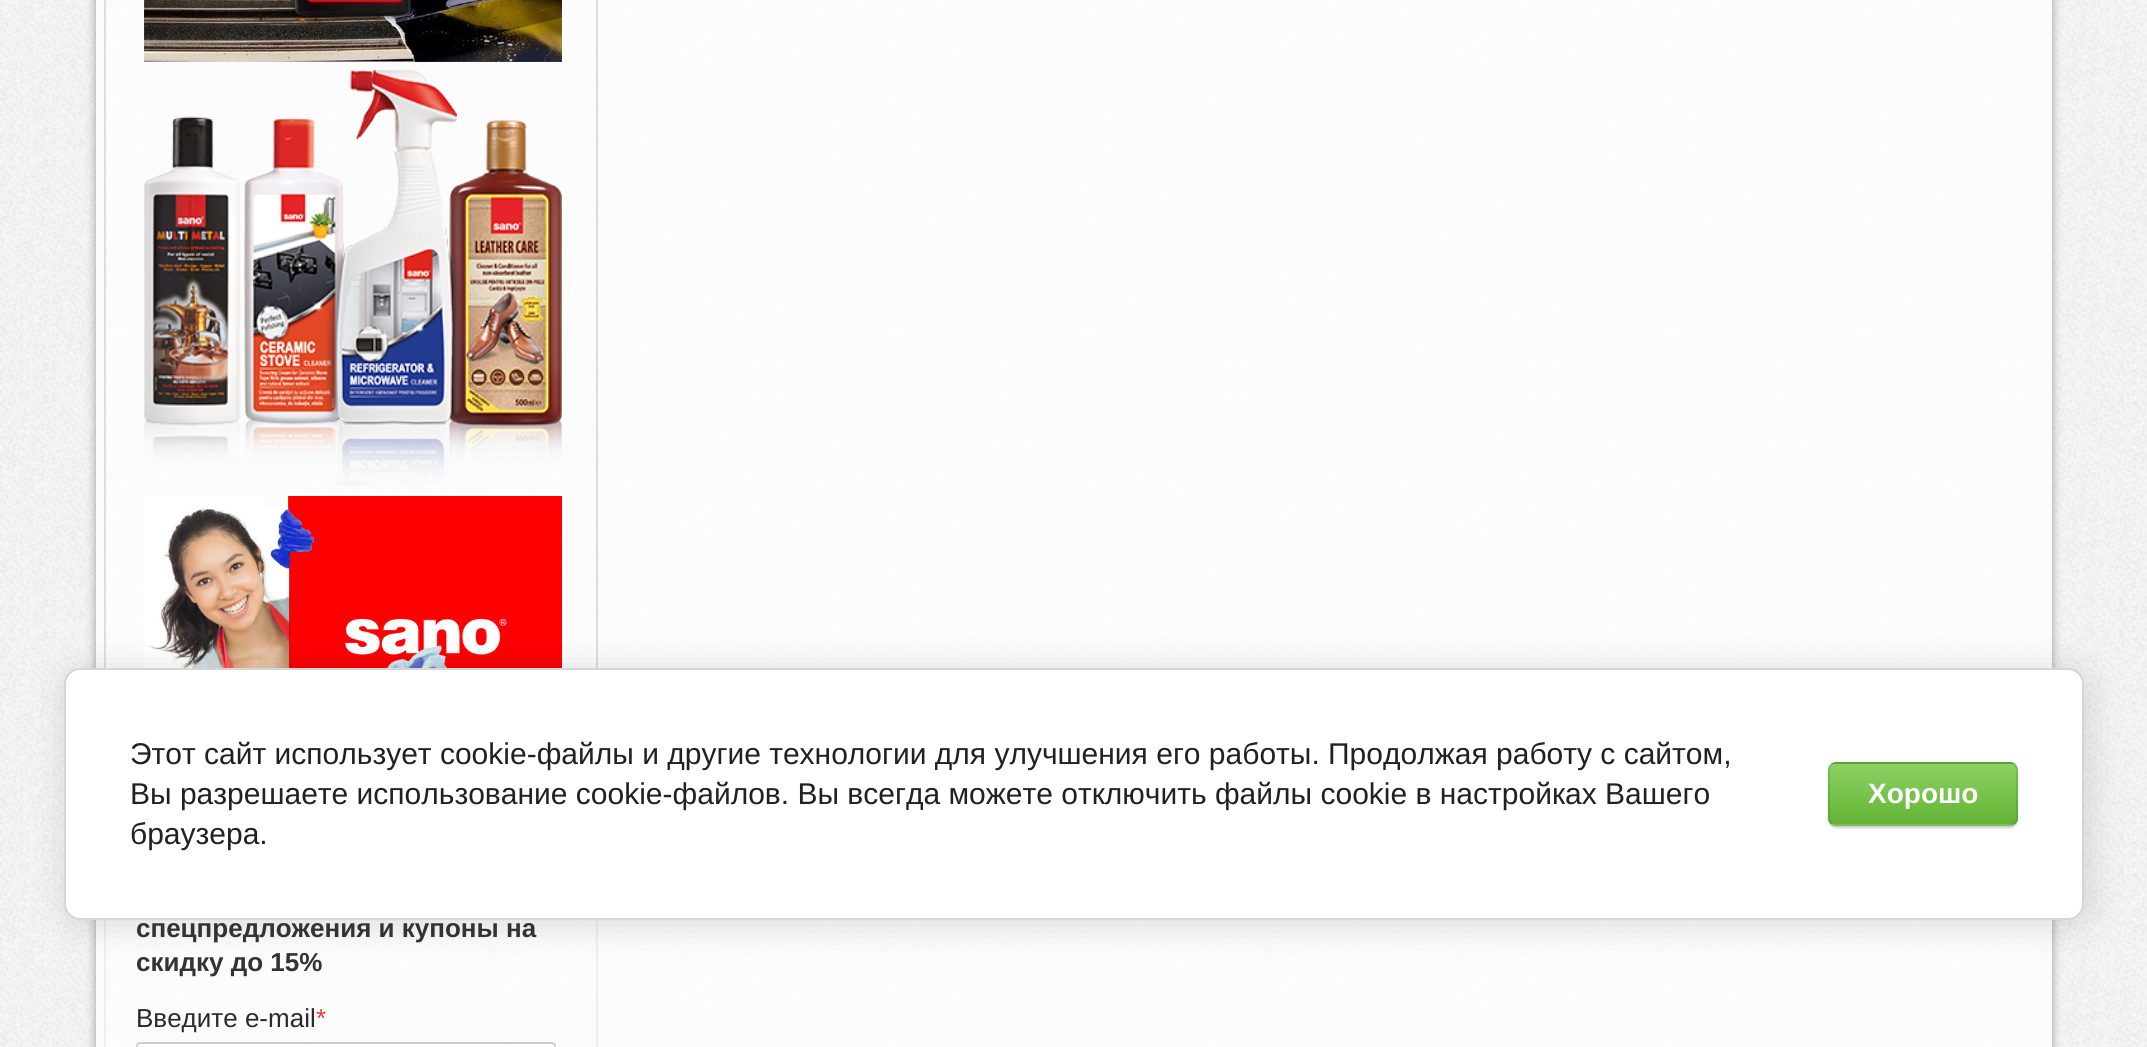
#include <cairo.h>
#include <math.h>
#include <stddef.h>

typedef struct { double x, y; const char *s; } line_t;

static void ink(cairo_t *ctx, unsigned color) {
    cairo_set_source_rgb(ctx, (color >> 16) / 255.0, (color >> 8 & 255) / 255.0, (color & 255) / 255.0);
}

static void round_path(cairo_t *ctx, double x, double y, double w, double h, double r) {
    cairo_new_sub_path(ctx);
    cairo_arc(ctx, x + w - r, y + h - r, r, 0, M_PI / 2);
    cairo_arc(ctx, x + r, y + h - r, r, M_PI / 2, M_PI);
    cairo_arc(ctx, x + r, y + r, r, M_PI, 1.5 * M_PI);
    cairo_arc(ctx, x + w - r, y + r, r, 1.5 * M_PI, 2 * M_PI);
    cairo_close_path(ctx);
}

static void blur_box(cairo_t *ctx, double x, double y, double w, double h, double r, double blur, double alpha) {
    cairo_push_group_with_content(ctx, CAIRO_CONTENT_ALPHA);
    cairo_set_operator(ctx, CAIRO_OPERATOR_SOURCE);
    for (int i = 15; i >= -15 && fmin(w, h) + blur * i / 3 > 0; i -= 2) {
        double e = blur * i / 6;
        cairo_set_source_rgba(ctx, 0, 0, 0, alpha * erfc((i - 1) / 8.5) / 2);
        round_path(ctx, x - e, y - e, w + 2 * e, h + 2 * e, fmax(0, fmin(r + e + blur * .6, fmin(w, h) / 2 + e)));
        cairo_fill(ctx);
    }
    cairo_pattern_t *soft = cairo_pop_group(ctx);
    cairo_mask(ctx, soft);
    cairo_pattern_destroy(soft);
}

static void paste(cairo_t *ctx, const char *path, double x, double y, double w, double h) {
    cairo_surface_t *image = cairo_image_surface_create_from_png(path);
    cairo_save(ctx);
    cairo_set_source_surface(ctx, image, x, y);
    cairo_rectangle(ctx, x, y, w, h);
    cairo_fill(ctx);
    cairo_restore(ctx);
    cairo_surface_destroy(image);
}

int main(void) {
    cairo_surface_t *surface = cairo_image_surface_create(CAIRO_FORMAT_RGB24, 2147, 1047);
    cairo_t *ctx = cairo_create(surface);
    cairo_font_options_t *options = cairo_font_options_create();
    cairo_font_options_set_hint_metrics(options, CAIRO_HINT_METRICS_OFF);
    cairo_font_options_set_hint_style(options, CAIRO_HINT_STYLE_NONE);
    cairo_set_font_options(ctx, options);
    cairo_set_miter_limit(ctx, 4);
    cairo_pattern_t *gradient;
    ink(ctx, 0xFFFFFF);
    cairo_paint(ctx);
    paste(ctx, "media/1.png", 0, 0, 2147, 1047);
    cairo_save(ctx);
    cairo_set_fill_rule(ctx, CAIRO_FILL_RULE_EVEN_ODD);
    cairo_new_path(ctx);
    cairo_move_to(ctx, 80, 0);
    cairo_line_to(ctx, 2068, 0);
    cairo_line_to(ctx, 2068, 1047);
    cairo_line_to(ctx, 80, 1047);
    cairo_close_path(ctx);
    cairo_move_to(ctx, 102, -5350);
    cairo_line_to(ctx, 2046, -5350);
    cairo_curve_to(ctx, 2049.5, -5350, 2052, -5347.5, 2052, -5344);
    cairo_line_to(ctx, 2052, 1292);
    cairo_curve_to(ctx, 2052, 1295.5, 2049.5, 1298, 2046, 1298);
    cairo_line_to(ctx, 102, 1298);
    cairo_curve_to(ctx, 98.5, 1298, 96, 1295.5, 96, 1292);
    cairo_line_to(ctx, 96, -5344);
    cairo_curve_to(ctx, 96, -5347.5, 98.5, -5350, 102, -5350);
    cairo_close_path(ctx);
    cairo_clip(ctx);
    ink(ctx, 0x9B9B9B);
    blur_box(ctx, 96, -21, 1956, 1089, 6, 5, 1);
    cairo_restore(ctx);
    ink(ctx, 0xDDDDDD);
    cairo_rectangle(ctx, 596, 0, 2, 668);
    cairo_fill(ctx);
    cairo_rectangle(ctx, 104, 0, 2, 668);
    cairo_fill(ctx);
    paste(ctx, "media/4.png", 144, 496, 418, 172);
    cairo_rectangle(ctx, 105, 857, 492, 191);
    ink(ctx, 0xEEEEEE);
    cairo_stroke(ctx);
    ink(ctx, 0x000000);
    blur_box(ctx, 68, 672, 2020, 252, 16, 18, 0.14);
    ink(ctx, 0xFFFFFF);
    round_path(ctx, 65, 669, 2018, 250, 15);
    cairo_fill_preserve(ctx);
    ink(ctx, 0xD6D6D6);
    cairo_stroke(ctx);
    cairo_select_font_face(ctx, "Liberation Sans", CAIRO_FONT_SLANT_NORMAL, CAIRO_FONT_WEIGHT_NORMAL);
    cairo_set_font_size(ctx, 30);
    ink(ctx, 0x212121);
    {
        static const line_t items[] = {
            {130, 764, "Этот сайт использует cookie-файлы и другие технологии для улучшения его работы. Продолжая работу с сайтом,"},
            {130, 804, "Вы разрешаете использование cookie-файлов. Вы всегда можете отключить файлы cookie в настройках Вашего"},
            {130, 844, "браузера."},
        };
        for (size_t i = 0; i < sizeof items / sizeof *items; i++) {
            cairo_move_to(ctx, items[i].x, items[i].y);
            cairo_show_text(ctx, items[i].s);
        }
    }
    ink(ctx, 0x000000);
    blur_box(ctx, 1828, 764, 190, 64, 8, 1, 0.2);
    cairo_save(ctx);
    round_path(ctx, 1828, 762, 190, 64, 8);
    cairo_clip(ctx);
    gradient = cairo_pattern_create_linear(1923, 704, 1923, 764);
    cairo_pattern_add_color_stop_rgba(gradient, 0, 0.549, 0.82, 0.392, 1);
    cairo_pattern_add_color_stop_rgba(gradient, 1, 0.388, 0.706, 0.208, 1);
    cairo_set_source(ctx, gradient);
    cairo_pattern_destroy(gradient);
    cairo_rectangle(ctx, 1828, 762, 190, 2);
    cairo_fill(ctx);
    gradient = cairo_pattern_create_linear(1923, 764, 1923, 824);
    cairo_pattern_add_color_stop_rgba(gradient, 0, 0.549, 0.82, 0.392, 1);
    cairo_pattern_add_color_stop_rgba(gradient, 1, 0.388, 0.706, 0.208, 1);
    cairo_set_source(ctx, gradient);
    cairo_pattern_destroy(gradient);
    cairo_rectangle(ctx, 1828, 764, 190, 60);
    cairo_fill(ctx);
    gradient = cairo_pattern_create_linear(1923, 824, 1923, 884);
    cairo_pattern_add_color_stop_rgba(gradient, 0, 0.549, 0.82, 0.392, 1);
    cairo_pattern_add_color_stop_rgba(gradient, 1, 0.388, 0.706, 0.208, 1);
    cairo_set_source(ctx, gradient);
    cairo_pattern_destroy(gradient);
    cairo_rectangle(ctx, 1828, 824, 190, 2);
    cairo_fill(ctx);
    cairo_restore(ctx);
    round_path(ctx, 1829, 763, 188, 62, 7);
    cairo_set_source_rgba(ctx, 0, 0, 0, 0.1);
    cairo_stroke(ctx);
    cairo_select_font_face(ctx, "Liberation Sans", CAIRO_FONT_SLANT_NORMAL, CAIRO_FONT_WEIGHT_BOLD);
    cairo_set_font_size(ctx, 28);
    ink(ctx, 0xFFFFFF);
    cairo_move_to(ctx, 1868, 803);
    cairo_show_text(ctx, "Хорошо");
    paste(ctx, "media/2.png", 144, 0, 418, 62);
    paste(ctx, "media/3.png", 144, 70, 418, 416);
    cairo_set_font_size(ctx, 26);
    ink(ctx, 0x333333);
    cairo_move_to(ctx, 136, 937);
    cairo_show_text(ctx, "спецпредложения и купоны на");
    cairo_move_to(ctx, 136, 971);
    cairo_show_text(ctx, "скидку до 15%");
    cairo_select_font_face(ctx, "Liberation Sans", CAIRO_FONT_SLANT_NORMAL, CAIRO_FONT_WEIGHT_NORMAL);
    ink(ctx, 0x2A2A2A);
    cairo_move_to(ctx, 136, 1027);
    cairo_show_text(ctx, "Введите e-mail");
    ink(ctx, 0xEB3C3C);
    cairo_move_to(ctx, 316, 1027);
    cairo_show_text(ctx, "*");
    ink(ctx, 0xFFFFFF);
    round_path(ctx, 137, 1043, 418, 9, 3);
    cairo_fill_preserve(ctx);
    ink(ctx, 0xCCCCCC);
    cairo_stroke(ctx);
    cairo_surface_write_to_png(surface, "image.png");
    cairo_font_options_destroy(options);
    cairo_destroy(ctx);
    cairo_surface_destroy(surface);
    return 0;
}
